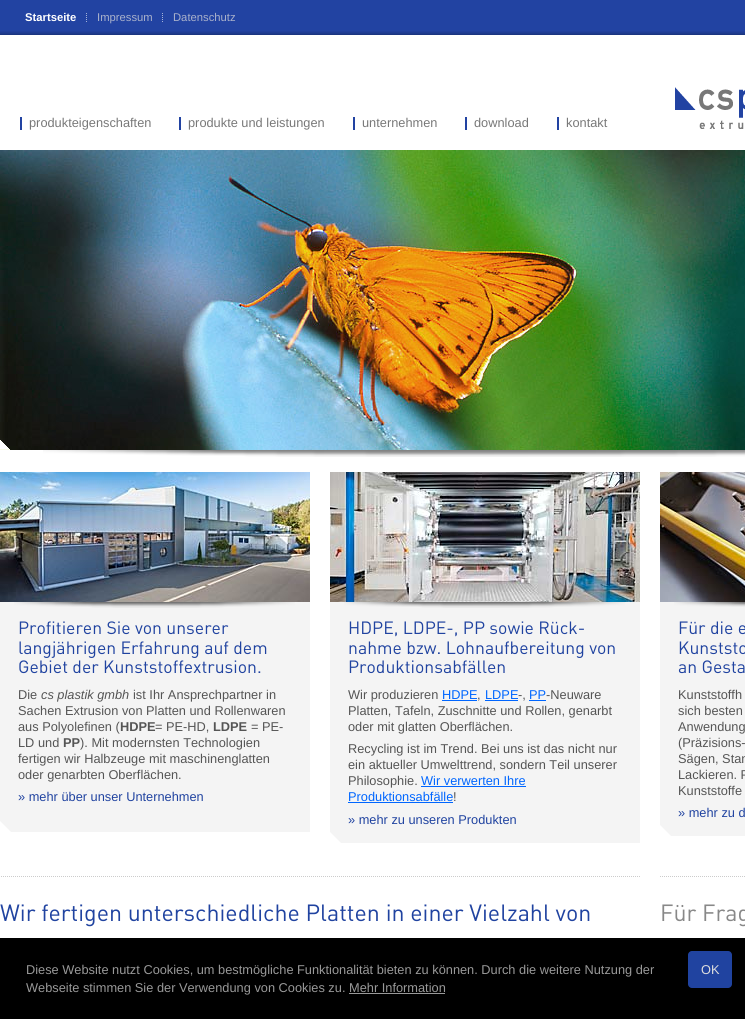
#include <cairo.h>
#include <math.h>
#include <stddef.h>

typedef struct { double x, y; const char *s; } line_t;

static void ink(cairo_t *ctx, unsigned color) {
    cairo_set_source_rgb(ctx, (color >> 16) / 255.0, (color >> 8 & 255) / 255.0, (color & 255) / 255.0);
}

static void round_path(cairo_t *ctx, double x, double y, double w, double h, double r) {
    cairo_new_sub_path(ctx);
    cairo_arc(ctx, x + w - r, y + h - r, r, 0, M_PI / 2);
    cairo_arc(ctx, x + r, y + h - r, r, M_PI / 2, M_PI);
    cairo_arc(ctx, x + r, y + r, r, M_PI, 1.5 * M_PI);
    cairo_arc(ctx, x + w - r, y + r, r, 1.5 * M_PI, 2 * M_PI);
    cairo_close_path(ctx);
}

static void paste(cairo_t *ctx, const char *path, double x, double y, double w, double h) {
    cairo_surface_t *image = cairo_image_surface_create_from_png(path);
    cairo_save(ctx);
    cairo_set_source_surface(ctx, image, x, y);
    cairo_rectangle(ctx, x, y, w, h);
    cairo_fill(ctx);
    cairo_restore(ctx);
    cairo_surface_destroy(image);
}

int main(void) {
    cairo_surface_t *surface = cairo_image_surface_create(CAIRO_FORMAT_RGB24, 745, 1019);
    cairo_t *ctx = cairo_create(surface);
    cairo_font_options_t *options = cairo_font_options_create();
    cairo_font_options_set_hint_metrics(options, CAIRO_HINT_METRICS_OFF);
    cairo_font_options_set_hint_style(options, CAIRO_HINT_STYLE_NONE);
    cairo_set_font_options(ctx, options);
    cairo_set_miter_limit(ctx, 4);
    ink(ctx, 0xFFFFFF);
    cairo_paint(ctx);
    ink(ctx, 0x2243A2);
    cairo_rectangle(ctx, 0, 0, 745, 31);
    cairo_fill(ctx);
    paste(ctx, "media/1.png", 0, 31, 745, 4);
    cairo_select_font_face(ctx, "Liberation Sans", CAIRO_FONT_SLANT_NORMAL, CAIRO_FONT_WEIGHT_BOLD);
    cairo_set_font_size(ctx, 11.25);
    ink(ctx, 0xFFFFFF);
    cairo_move_to(ctx, 25, 21);
    cairo_show_text(ctx, "Startseite");
    paste(ctx, "media/2.png", 86, 13, 1, 9);
    cairo_select_font_face(ctx, "Liberation Sans", CAIRO_FONT_SLANT_NORMAL, CAIRO_FONT_WEIGHT_NORMAL);
    ink(ctx, 0xA9B1CB);
    cairo_move_to(ctx, 97, 21);
    cairo_show_text(ctx, "Impressum");
    paste(ctx, "media/2.png", 162, 13, 1, 9);
    cairo_move_to(ctx, 173, 21);
    cairo_show_text(ctx, "Datenschutz");
    ink(ctx, 0x2243A2);
    cairo_rectangle(ctx, 20, 117, 2, 13);
    cairo_fill(ctx);
    cairo_set_font_size(ctx, 12.8);
    ink(ctx, 0x787878);
    cairo_move_to(ctx, 29, 127);
    cairo_show_text(ctx, "produkteigenschaften");
    ink(ctx, 0x2243A2);
    cairo_rectangle(ctx, 179, 117, 2, 13);
    cairo_fill(ctx);
    ink(ctx, 0x787878);
    cairo_move_to(ctx, 188, 127);
    cairo_show_text(ctx, "produkte und leistungen");
    ink(ctx, 0x2243A2);
    cairo_rectangle(ctx, 353, 117, 2, 13);
    cairo_fill(ctx);
    ink(ctx, 0x787878);
    cairo_move_to(ctx, 362, 127);
    cairo_show_text(ctx, "unternehmen");
    ink(ctx, 0x2243A2);
    cairo_rectangle(ctx, 465, 117, 2, 13);
    cairo_fill(ctx);
    ink(ctx, 0x787878);
    cairo_move_to(ctx, 474, 127);
    cairo_show_text(ctx, "download");
    ink(ctx, 0x2243A2);
    cairo_rectangle(ctx, 557, 117, 2, 13);
    cairo_fill(ctx);
    ink(ctx, 0x787878);
    cairo_move_to(ctx, 566, 127);
    cairo_show_text(ctx, "kontakt");
    paste(ctx, "media/3.png", 675, 87, 70, 42);
    paste(ctx, "media/4.png", 0, 150, 745, 300);
    paste(ctx, "media/5.png", 0, 440, 10, 10);
    paste(ctx, "media/6.png", 43, 450, 702, 7);
    ink(ctx, 0xF4F4F4);
    cairo_rectangle(ctx, 0, 602, 310, 230);
    cairo_fill(ctx);
    paste(ctx, "media/7.png", 0, 821, 11, 11);
    paste(ctx, "media/8.png", 0, 472, 310, 130);
    paste(ctx, "media/9.png", 14, 602, 281, 6);
    cairo_select_font_face(ctx, "DIN", CAIRO_FONT_SLANT_NORMAL, CAIRO_FONT_WEIGHT_NORMAL);
    cairo_set_font_size(ctx, 17.6);
    ink(ctx, 0x2043A0);
    {
        static const line_t items[] = {
            {18, 634, "Profitieren Sie von unserer"},
            {18, 654, "langjährigen Erfahrung auf dem"},
            {18, 673, "Gebiet der Kunststoffextrusion."},
        };
        for (size_t i = 0; i < sizeof items / sizeof *items; i++) {
            cairo_move_to(ctx, items[i].x, items[i].y);
            cairo_show_text(ctx, items[i].s);
        }
    }
    cairo_select_font_face(ctx, "Liberation Sans", CAIRO_FONT_SLANT_NORMAL, CAIRO_FONT_WEIGHT_NORMAL);
    cairo_set_font_size(ctx, 12.8);
    ink(ctx, 0x555555);
    cairo_move_to(ctx, 18, 699);
    cairo_show_text(ctx, "Die");
    cairo_select_font_face(ctx, "Liberation Sans", CAIRO_FONT_SLANT_ITALIC, CAIRO_FONT_WEIGHT_NORMAL);
    cairo_move_to(ctx, 41, 699);
    cairo_show_text(ctx, "cs plastik gmbh");
    cairo_select_font_face(ctx, "Liberation Sans", CAIRO_FONT_SLANT_NORMAL, CAIRO_FONT_WEIGHT_NORMAL);
    {
        static const line_t items[] = {
            {133, 699, "ist Ihr Ansprechpartner in"},
            {18, 715, "Sachen Extrusion von Platten und Rollenwaren"},
            {18, 731, "aus Polyolefinen ("},
        };
        for (size_t i = 0; i < sizeof items / sizeof *items; i++) {
            cairo_move_to(ctx, items[i].x, items[i].y);
            cairo_show_text(ctx, items[i].s);
        }
    }
    cairo_select_font_face(ctx, "Liberation Sans", CAIRO_FONT_SLANT_NORMAL, CAIRO_FONT_WEIGHT_BOLD);
    cairo_move_to(ctx, 120, 731);
    cairo_show_text(ctx, "HDPE");
    cairo_select_font_face(ctx, "Liberation Sans", CAIRO_FONT_SLANT_NORMAL, CAIRO_FONT_WEIGHT_NORMAL);
    cairo_move_to(ctx, 155, 731);
    cairo_show_text(ctx, "= PE-HD,");
    cairo_select_font_face(ctx, "Liberation Sans", CAIRO_FONT_SLANT_NORMAL, CAIRO_FONT_WEIGHT_BOLD);
    cairo_move_to(ctx, 213, 731);
    cairo_show_text(ctx, "LDPE");
    cairo_select_font_face(ctx, "Liberation Sans", CAIRO_FONT_SLANT_NORMAL, CAIRO_FONT_WEIGHT_NORMAL);
    cairo_move_to(ctx, 251, 731);
    cairo_show_text(ctx, "= PE-");
    cairo_move_to(ctx, 18, 747);
    cairo_show_text(ctx, "LD und");
    cairo_select_font_face(ctx, "Liberation Sans", CAIRO_FONT_SLANT_NORMAL, CAIRO_FONT_WEIGHT_BOLD);
    cairo_move_to(ctx, 63, 747);
    cairo_show_text(ctx, "PP");
    cairo_select_font_face(ctx, "Liberation Sans", CAIRO_FONT_SLANT_NORMAL, CAIRO_FONT_WEIGHT_NORMAL);
    {
        static const line_t items[] = {
            {80, 747, "). Mit modernsten Technologien"},
            {18, 763, "fertigen wir Halbzeuge mit maschinenglatten"},
            {18, 779, "oder genarbten Oberflächen."},
        };
        for (size_t i = 0; i < sizeof items / sizeof *items; i++) {
            cairo_move_to(ctx, items[i].x, items[i].y);
            cairo_show_text(ctx, items[i].s);
        }
    }
    ink(ctx, 0x2043A0);
    cairo_move_to(ctx, 18, 801);
    cairo_show_text(ctx, "» mehr über unser Unternehmen");
    ink(ctx, 0xF4F4F4);
    cairo_rectangle(ctx, 330, 602, 310, 241);
    cairo_fill(ctx);
    paste(ctx, "media/7.png", 330, 832, 11, 11);
    paste(ctx, "media/10.png", 330, 472, 310, 130);
    paste(ctx, "media/9.png", 344, 602, 281, 6);
    cairo_select_font_face(ctx, "DIN", CAIRO_FONT_SLANT_NORMAL, CAIRO_FONT_WEIGHT_NORMAL);
    cairo_set_font_size(ctx, 17.6);
    ink(ctx, 0x2043A0);
    {
        static const line_t items[] = {
            {348, 634, "HDPE, LDPE-, PP sowie Rück-"},
            {348, 654, "nahme bzw. Lohnaufbereitung von"},
            {348, 673, "Produktionsabfällen"},
        };
        for (size_t i = 0; i < sizeof items / sizeof *items; i++) {
            cairo_move_to(ctx, items[i].x, items[i].y);
            cairo_show_text(ctx, items[i].s);
        }
    }
    cairo_select_font_face(ctx, "Liberation Sans", CAIRO_FONT_SLANT_NORMAL, CAIRO_FONT_WEIGHT_NORMAL);
    cairo_set_font_size(ctx, 12.8);
    ink(ctx, 0x555555);
    cairo_move_to(ctx, 348, 699);
    cairo_show_text(ctx, "Wir produzieren");
    ink(ctx, 0x0066FF);
    cairo_move_to(ctx, 442, 699);
    cairo_show_text(ctx, "HDPE");
    cairo_rectangle(ctx, 442, 700, 35, 1);
    cairo_fill(ctx);
    ink(ctx, 0x555555);
    cairo_move_to(ctx, 477, 699);
    cairo_show_text(ctx, ",");
    ink(ctx, 0x0066FF);
    cairo_move_to(ctx, 485, 699);
    cairo_show_text(ctx, "LDPE");
    cairo_rectangle(ctx, 485, 700, 33, 1);
    cairo_fill(ctx);
    ink(ctx, 0x555555);
    cairo_move_to(ctx, 518, 699);
    cairo_show_text(ctx, "-,");
    ink(ctx, 0x0066FF);
    cairo_move_to(ctx, 529, 699);
    cairo_show_text(ctx, "PP");
    cairo_rectangle(ctx, 529, 700, 17, 1);
    cairo_fill(ctx);
    ink(ctx, 0x555555);
    {
        static const line_t items[] = {
            {546, 699, "-Neuware"},
            {348, 715, "Platten, Tafeln, Zuschnitte und Rollen, genarbt"},
            {348, 731, "oder mit glatten Oberflächen."},
            {348, 753, "Recycling ist im Trend. Bei uns ist das nicht nur"},
            {348, 769, "ein aktueller Umwelttrend, sondern Teil unserer"},
            {348, 785, "Philosophie."},
        };
        for (size_t i = 0; i < sizeof items / sizeof *items; i++) {
            cairo_move_to(ctx, items[i].x, items[i].y);
            cairo_show_text(ctx, items[i].s);
        }
    }
    ink(ctx, 0x0066FF);
    cairo_move_to(ctx, 421, 785);
    cairo_show_text(ctx, "Wir verwerten Ihre");
    cairo_rectangle(ctx, 421, 786, 105, 1);
    cairo_fill(ctx);
    cairo_move_to(ctx, 348, 801);
    cairo_show_text(ctx, "Produktionsabfälle");
    cairo_rectangle(ctx, 348, 802, 105, 1);
    cairo_fill(ctx);
    ink(ctx, 0x555555);
    cairo_move_to(ctx, 453, 801);
    cairo_show_text(ctx, "!");
    ink(ctx, 0x2043A0);
    cairo_move_to(ctx, 348, 824);
    cairo_show_text(ctx, "» mehr zu unseren Produkten");
    ink(ctx, 0xF4F4F4);
    cairo_rectangle(ctx, 660, 602, 85, 234);
    cairo_fill(ctx);
    paste(ctx, "media/7.png", 660, 825, 11, 11);
    paste(ctx, "media/11.png", 660, 472, 85, 130);
    paste(ctx, "media/12.png", 674, 602, 71, 5);
    cairo_select_font_face(ctx, "DIN", CAIRO_FONT_SLANT_NORMAL, CAIRO_FONT_WEIGHT_NORMAL);
    cairo_set_font_size(ctx, 17.6);
    ink(ctx, 0x2043A0);
    {
        static const line_t items[] = {
            {678, 634, "Für die e"},
            {678, 654, "Kunststo"},
            {678, 673, "an Gesta"},
        };
        for (size_t i = 0; i < sizeof items / sizeof *items; i++) {
            cairo_move_to(ctx, items[i].x, items[i].y);
            cairo_show_text(ctx, items[i].s);
        }
    }
    cairo_select_font_face(ctx, "Liberation Sans", CAIRO_FONT_SLANT_NORMAL, CAIRO_FONT_WEIGHT_NORMAL);
    cairo_set_font_size(ctx, 12.8);
    ink(ctx, 0x555555);
    {
        static const line_t items[] = {
            {678, 699, "Kunststoffh"},
            {678, 715, "sich besten"},
            {678, 731, "Anwendung"},
            {678, 747, "(Präzisions-"},
            {678, 763, "Sägen, Stan"},
            {678, 779, "Lackieren. P"},
            {678, 795, "Kunststoffe"},
        };
        for (size_t i = 0; i < sizeof items / sizeof *items; i++) {
            cairo_move_to(ctx, items[i].x, items[i].y);
            cairo_show_text(ctx, items[i].s);
        }
    }
    ink(ctx, 0x2043A0);
    cairo_move_to(ctx, 678, 817);
    cairo_show_text(ctx, "» mehr zu d");
    paste(ctx, "media/13.png", 1, 876, 639, 1);
    paste(ctx, "media/14.png", 660, 876, 85, 1);
    cairo_select_font_face(ctx, "DIN", CAIRO_FONT_SLANT_NORMAL, CAIRO_FONT_WEIGHT_NORMAL);
    cairo_set_font_size(ctx, 23.2);
    cairo_move_to(ctx, 0, 921);
    cairo_show_text(ctx, "Wir fertigen unterschiedliche Platten in einer Vielzahl von");
    ink(ctx, 0x888888);
    cairo_move_to(ctx, 660, 921);
    cairo_show_text(ctx, "Für Frag");
    ink(ctx, 0x000000);
    cairo_rectangle(ctx, 0, 938, 745, 81);
    cairo_fill(ctx);
    cairo_select_font_face(ctx, "Liberation Sans", CAIRO_FONT_SLANT_NORMAL, CAIRO_FONT_WEIGHT_NORMAL);
    cairo_set_font_size(ctx, 12.8);
    ink(ctx, 0x999999);
    cairo_move_to(ctx, 26, 974);
    cairo_show_text(ctx, "Diese Website nutzt Cookies, um bestmögliche Funktionalität bieten zu können. Durch die weitere Nutzung der");
    cairo_move_to(ctx, 26, 992);
    cairo_show_text(ctx, "Webseite stimmen Sie der Verwendung von Cookies zu. Mehr Information");
    cairo_rectangle(ctx, 349, 993, 96, 1);
    cairo_fill(ctx);
    ink(ctx, 0x2043A0);
    round_path(ctx, 688, 951, 44, 37, 4);
    cairo_fill(ctx);
    ink(ctx, 0xDDDDDD);
    cairo_move_to(ctx, 701, 974);
    cairo_show_text(ctx, "OK");
    cairo_surface_write_to_png(surface, "image.png");
    cairo_font_options_destroy(options);
    cairo_destroy(ctx);
    cairo_surface_destroy(surface);
    return 0;
}
